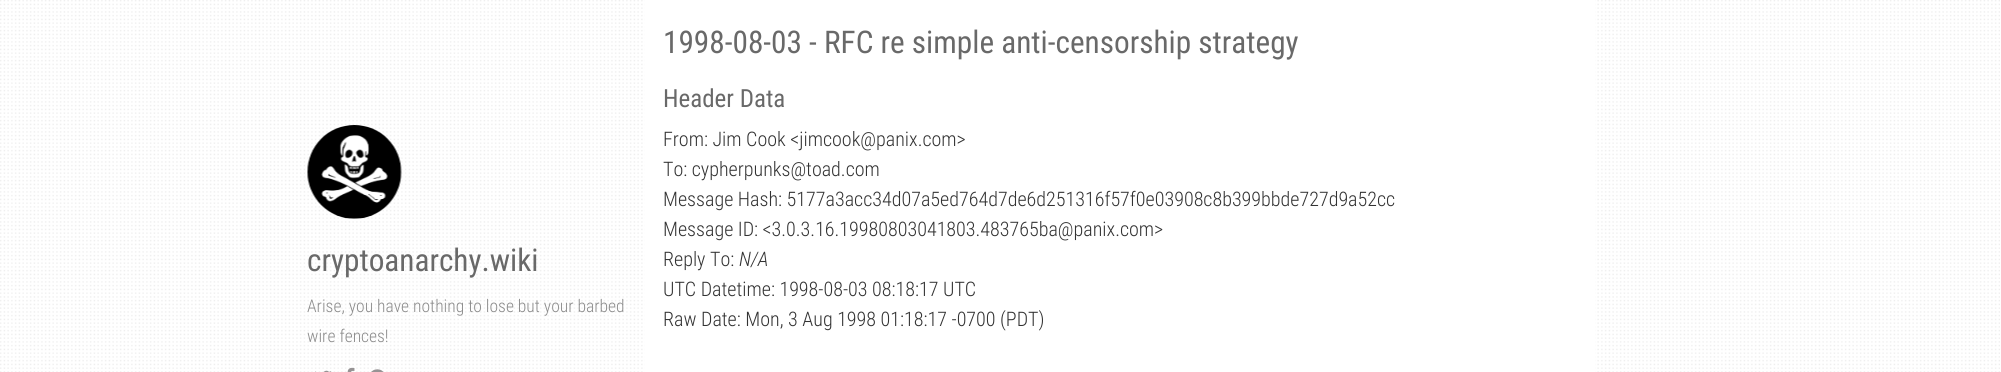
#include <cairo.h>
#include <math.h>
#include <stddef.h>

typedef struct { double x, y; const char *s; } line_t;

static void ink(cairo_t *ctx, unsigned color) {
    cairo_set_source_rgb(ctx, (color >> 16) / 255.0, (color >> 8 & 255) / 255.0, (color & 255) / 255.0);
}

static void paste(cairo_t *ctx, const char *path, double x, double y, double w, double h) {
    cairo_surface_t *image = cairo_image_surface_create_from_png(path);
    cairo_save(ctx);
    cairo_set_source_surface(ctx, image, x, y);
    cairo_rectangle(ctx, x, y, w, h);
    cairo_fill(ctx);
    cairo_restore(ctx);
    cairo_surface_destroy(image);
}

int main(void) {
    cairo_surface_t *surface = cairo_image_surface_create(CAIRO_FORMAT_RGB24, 2001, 372);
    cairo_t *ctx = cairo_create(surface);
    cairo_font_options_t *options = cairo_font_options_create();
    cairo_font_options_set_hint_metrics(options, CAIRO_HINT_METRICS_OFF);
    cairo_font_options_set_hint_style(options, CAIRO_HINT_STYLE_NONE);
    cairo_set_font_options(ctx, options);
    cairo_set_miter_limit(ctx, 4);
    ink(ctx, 0xFFFFFF);
    cairo_paint(ctx);
    paste(ctx, "media/1.png", 0, 0, 2000, 372);
    paste(ctx, "media/2.png", 307, 125, 95, 94);
    cairo_select_font_face(ctx, "Roboto Condensed", CAIRO_FONT_SLANT_NORMAL, CAIRO_FONT_WEIGHT_NORMAL);
    cairo_set_font_size(ctx, 31.25);
    ink(ctx, 0x696969);
    cairo_move_to(ctx, 307, 271);
    cairo_show_text(ctx, "cryptoanarchy.wiki");
    cairo_select_font_face(ctx, "Roboto Condensed Light", CAIRO_FONT_SLANT_NORMAL, CAIRO_FONT_WEIGHT_NORMAL);
    cairo_set_font_size(ctx, 17.5);
    ink(ctx, 0x8C8C8C);
    cairo_move_to(ctx, 307, 312);
    cairo_show_text(ctx, "Arise, you have nothing to lose but your barbed");
    cairo_move_to(ctx, 307, 342);
    cairo_show_text(ctx, "wire fences!");
    paste(ctx, "media/3.png", 315, 370, 17, 2);
    paste(ctx, "media/4.png", 347, 367, 8, 5);
    paste(ctx, "media/5.png", 371, 369, 13, 3);
    ink(ctx, 0xFFFFFF);
    cairo_rectangle(ctx, 645, 0, 950, 372);
    cairo_fill(ctx);
    cairo_select_font_face(ctx, "Roboto Condensed", CAIRO_FONT_SLANT_NORMAL, CAIRO_FONT_WEIGHT_NORMAL);
    cairo_set_font_size(ctx, 31.25);
    ink(ctx, 0x696969);
    cairo_move_to(ctx, 663, 53);
    cairo_show_text(ctx, "1998-08-03 - RFC re simple anti-censorship strategy");
    cairo_set_font_size(ctx, 25);
    cairo_move_to(ctx, 663, 107);
    cairo_show_text(ctx, "Header Data");
    cairo_select_font_face(ctx, "Roboto Condensed Light", CAIRO_FONT_SLANT_NORMAL, CAIRO_FONT_WEIGHT_NORMAL);
    cairo_set_font_size(ctx, 20);
    ink(ctx, 0x333333);
    {
        static const line_t items[] = {
            {663, 146, "From: Jim Cook <jimcook@panix.com>"},
            {663, 176, "To: cypherpunks@toad.com"},
            {663, 206, "Message Hash: 5177a3acc34d07a5ed764d7de6d251316f57f0e03908c8b399bbde727d9a52cc"},
            {663, 236, "Message ID: <3.0.3.16.19980803041803.483765ba@panix.com>"},
            {663, 266, "Reply To:"},
        };
        for (size_t i = 0; i < sizeof items / sizeof *items; i++) {
            cairo_move_to(ctx, items[i].x, items[i].y);
            cairo_show_text(ctx, items[i].s);
        }
    }
    cairo_select_font_face(ctx, "Roboto Condensed Light", CAIRO_FONT_SLANT_ITALIC, CAIRO_FONT_WEIGHT_NORMAL);
    cairo_move_to(ctx, 739, 266);
    cairo_show_text(ctx, "N/A");
    cairo_select_font_face(ctx, "Roboto Condensed Light", CAIRO_FONT_SLANT_NORMAL, CAIRO_FONT_WEIGHT_NORMAL);
    cairo_move_to(ctx, 663, 296);
    cairo_show_text(ctx, "UTC Datetime: 1998-08-03 08:18:17 UTC");
    cairo_move_to(ctx, 663, 326);
    cairo_show_text(ctx, "Raw Date: Mon, 3 Aug 1998 01:18:17 -0700 (PDT)");
    cairo_surface_write_to_png(surface, "image.png");
    cairo_font_options_destroy(options);
    cairo_destroy(ctx);
    cairo_surface_destroy(surface);
    return 0;
}
